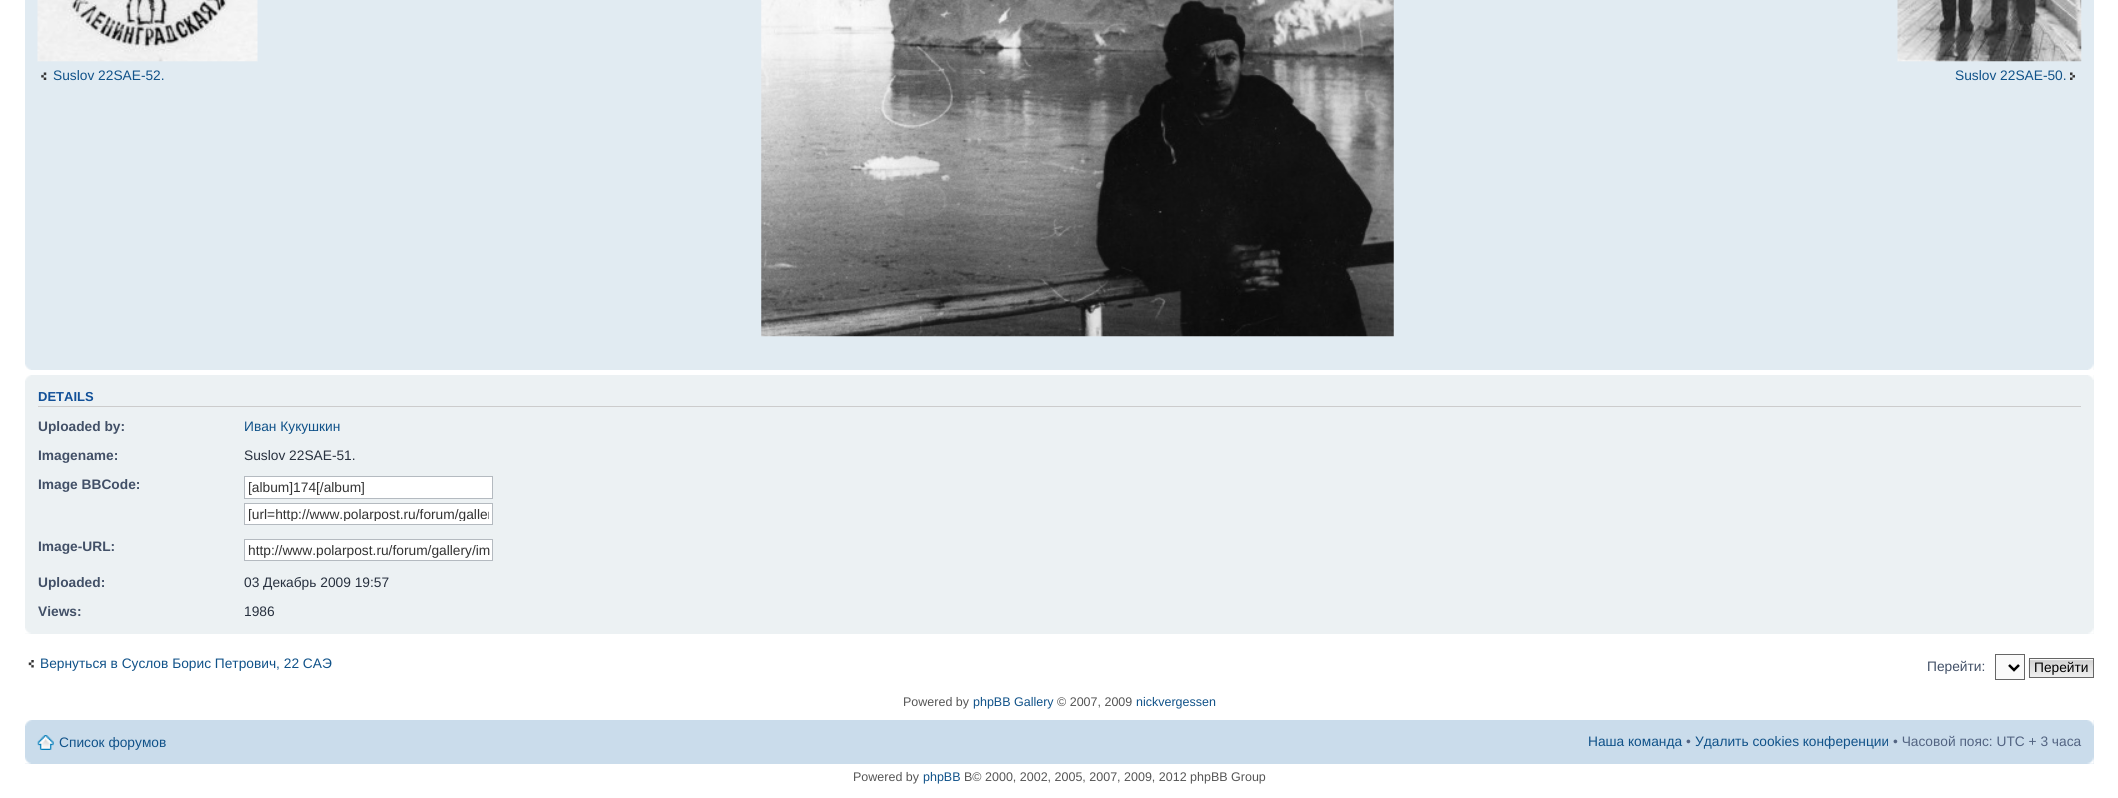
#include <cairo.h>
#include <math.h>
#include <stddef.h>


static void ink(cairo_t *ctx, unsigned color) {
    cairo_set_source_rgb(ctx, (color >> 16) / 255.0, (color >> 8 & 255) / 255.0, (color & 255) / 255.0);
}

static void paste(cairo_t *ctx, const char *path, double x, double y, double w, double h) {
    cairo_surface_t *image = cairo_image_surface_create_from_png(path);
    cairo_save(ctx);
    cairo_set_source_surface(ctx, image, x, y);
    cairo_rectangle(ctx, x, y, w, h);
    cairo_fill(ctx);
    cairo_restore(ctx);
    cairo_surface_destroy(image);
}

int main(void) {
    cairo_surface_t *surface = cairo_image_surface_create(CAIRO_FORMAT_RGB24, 2118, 798);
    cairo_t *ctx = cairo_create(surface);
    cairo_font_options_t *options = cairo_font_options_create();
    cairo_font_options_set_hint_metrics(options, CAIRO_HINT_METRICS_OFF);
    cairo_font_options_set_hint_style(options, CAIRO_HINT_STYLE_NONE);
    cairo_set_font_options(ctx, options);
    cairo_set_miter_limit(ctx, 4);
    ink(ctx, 0xFFFFFF);
    cairo_paint(ctx);
    ink(ctx, 0xE1EBF2);
    cairo_rectangle(ctx, 25, 0, 2069, 370);
    cairo_fill(ctx);
    paste(ctx, "media/1.png", 37, 0, 221, 62);
    paste(ctx, "media/2.png", 41, 72, 6, 8);
    cairo_select_font_face(ctx, "Liberation Sans", CAIRO_FONT_SLANT_NORMAL, CAIRO_FONT_WEIGHT_NORMAL);
    cairo_set_font_size(ctx, 13.75);
    ink(ctx, 0x105289);
    cairo_move_to(ctx, 53, 80);
    cairo_show_text(ctx, "Suslov 22SAE-52.");
    paste(ctx, "media/3.png", 761, 0, 633, 337);
    paste(ctx, "media/4.png", 1897, 0, 185, 62);
    paste(ctx, "media/5.png", 2070, 72, 5, 8);
    cairo_move_to(ctx, 1955, 80);
    cairo_show_text(ctx, "Suslov 22SAE-50.");
    paste(ctx, "media/6.png", 25, 364, 6, 6);
    paste(ctx, "media/7.png", 2088, 364, 6, 6);
    ink(ctx, 0xECF1F3);
    cairo_rectangle(ctx, 25, 375, 2069, 259);
    cairo_fill(ctx);
    paste(ctx, "media/8.png", 25, 375, 6, 6);
    paste(ctx, "media/9.png", 2088, 375, 6, 5);
    ink(ctx, 0xCCCCCC);
    cairo_rectangle(ctx, 38, 406, 2043, 1);
    cairo_fill(ctx);
    cairo_select_font_face(ctx, "Liberation Sans", CAIRO_FONT_SLANT_NORMAL, CAIRO_FONT_WEIGHT_BOLD);
    cairo_set_font_size(ctx, 13);
    ink(ctx, 0x115098);
    cairo_move_to(ctx, 38, 401);
    cairo_show_text(ctx, "DETAILS");
    cairo_set_font_size(ctx, 13.75);
    ink(ctx, 0x425067);
    cairo_move_to(ctx, 38, 431);
    cairo_show_text(ctx, "Uploaded by:");
    cairo_select_font_face(ctx, "Liberation Sans", CAIRO_FONT_SLANT_NORMAL, CAIRO_FONT_WEIGHT_NORMAL);
    ink(ctx, 0x105289);
    cairo_move_to(ctx, 244, 431);
    cairo_show_text(ctx, "Иван Кукушкин");
    cairo_select_font_face(ctx, "Liberation Sans", CAIRO_FONT_SLANT_NORMAL, CAIRO_FONT_WEIGHT_BOLD);
    ink(ctx, 0x425067);
    cairo_move_to(ctx, 38, 460);
    cairo_show_text(ctx, "Imagename:");
    cairo_select_font_face(ctx, "Liberation Sans", CAIRO_FONT_SLANT_NORMAL, CAIRO_FONT_WEIGHT_NORMAL);
    ink(ctx, 0x28313F);
    cairo_move_to(ctx, 244, 460);
    cairo_show_text(ctx, "Suslov 22SAE-51.");
    cairo_select_font_face(ctx, "Liberation Sans", CAIRO_FONT_SLANT_NORMAL, CAIRO_FONT_WEIGHT_BOLD);
    ink(ctx, 0x425067);
    cairo_move_to(ctx, 38, 489);
    cairo_show_text(ctx, "Image BBCode:");
    ink(ctx, 0xFFFFFF);
    cairo_rectangle(ctx, 244.5, 476.5, 248, 22);
    cairo_fill_preserve(ctx);
    ink(ctx, 0xB4BAC0);
    cairo_set_line_width(ctx, 1);
    cairo_stroke(ctx);
    cairo_select_font_face(ctx, "Liberation Sans", CAIRO_FONT_SLANT_NORMAL, CAIRO_FONT_WEIGHT_NORMAL);
    ink(ctx, 0x333333);
    cairo_move_to(ctx, 248, 492);
    cairo_show_text(ctx, "[album]174[/album]");
    ink(ctx, 0xFFFFFF);
    cairo_rectangle(ctx, 244.5, 503.5, 248, 21);
    cairo_fill_preserve(ctx);
    ink(ctx, 0xB4BAC0);
    cairo_stroke(ctx);
    cairo_save(ctx);
    cairo_rectangle(ctx, 248, 506, 241, 15);
    cairo_clip(ctx);
    ink(ctx, 0x333333);
    cairo_move_to(ctx, 248, 519);
    cairo_show_text(ctx, "[url=http://www.polarpost.ru/forum/galler");
    cairo_restore(ctx);
    cairo_select_font_face(ctx, "Liberation Sans", CAIRO_FONT_SLANT_NORMAL, CAIRO_FONT_WEIGHT_BOLD);
    ink(ctx, 0x425067);
    cairo_move_to(ctx, 38, 551);
    cairo_show_text(ctx, "Image-URL:");
    ink(ctx, 0xFFFFFF);
    cairo_rectangle(ctx, 244.5, 539.5, 248, 21);
    cairo_fill_preserve(ctx);
    ink(ctx, 0xB4BAC0);
    cairo_stroke(ctx);
    cairo_select_font_face(ctx, "Liberation Sans", CAIRO_FONT_SLANT_NORMAL, CAIRO_FONT_WEIGHT_NORMAL);
    ink(ctx, 0x333333);
    cairo_move_to(ctx, 248, 555);
    cairo_show_text(ctx, "http://www.polarpost.ru/forum/gallery/im");
    cairo_select_font_face(ctx, "Liberation Sans", CAIRO_FONT_SLANT_NORMAL, CAIRO_FONT_WEIGHT_BOLD);
    ink(ctx, 0x425067);
    cairo_move_to(ctx, 38, 587);
    cairo_show_text(ctx, "Uploaded:");
    cairo_select_font_face(ctx, "Liberation Sans", CAIRO_FONT_SLANT_NORMAL, CAIRO_FONT_WEIGHT_NORMAL);
    ink(ctx, 0x28313F);
    cairo_move_to(ctx, 244, 587);
    cairo_show_text(ctx, "03 Декабрь 2009 19:57");
    cairo_select_font_face(ctx, "Liberation Sans", CAIRO_FONT_SLANT_NORMAL, CAIRO_FONT_WEIGHT_BOLD);
    ink(ctx, 0x425067);
    cairo_move_to(ctx, 38, 616);
    cairo_show_text(ctx, "Views:");
    cairo_select_font_face(ctx, "Liberation Sans", CAIRO_FONT_SLANT_NORMAL, CAIRO_FONT_WEIGHT_NORMAL);
    ink(ctx, 0x28313F);
    cairo_move_to(ctx, 244, 616);
    cairo_show_text(ctx, "1986");
    paste(ctx, "media/10.png", 25, 628, 6, 6);
    paste(ctx, "media/11.png", 2088, 628, 6, 6);
    paste(ctx, "media/12.png", 28, 660, 6, 8);
    ink(ctx, 0x105289);
    cairo_move_to(ctx, 40, 668);
    cairo_show_text(ctx, "Вернуться в Суслов Борис Петрович, 22 САЭ");
    ink(ctx, 0x425067);
    cairo_move_to(ctx, 1927, 671);
    cairo_show_text(ctx, "Перейти:");
    ink(ctx, 0xFAFAFA);
    cairo_rectangle(ctx, 1995.5, 654.5, 29, 25);
    cairo_fill_preserve(ctx);
    ink(ctx, 0x666666);
    cairo_stroke(ctx);
    cairo_new_path(ctx);
    cairo_move_to(ctx, 2009, 665);
    cairo_line_to(ctx, 2014, 670);
    cairo_line_to(ctx, 2019, 665);
    ink(ctx, 0x000000);
    cairo_set_line_width(ctx, 2.5);
    cairo_stroke(ctx);
    ink(ctx, 0xFAFAFA);
    cairo_rectangle(ctx, 2030, 659, 63, 1);
    cairo_fill(ctx);
    paste(ctx, "media/13.png", 2028, 660, 65, 18);
    cairo_rectangle(ctx, 2029.5, 658.5, 64, 19);
    ink(ctx, 0x666666);
    cairo_set_line_width(ctx, 1);
    cairo_stroke(ctx);
    ink(ctx, 0x000000);
    cairo_move_to(ctx, 2034, 672);
    cairo_show_text(ctx, "Перейти");
    cairo_set_font_size(ctx, 12.5);
    ink(ctx, 0x555555);
    cairo_move_to(ctx, 903, 706);
    cairo_show_text(ctx, "Powered by");
    ink(ctx, 0x105289);
    cairo_move_to(ctx, 973, 706);
    cairo_show_text(ctx, "phpBB Gallery");
    ink(ctx, 0x555555);
    cairo_move_to(ctx, 1057, 706);
    cairo_show_text(ctx, "© 2007, 2009");
    ink(ctx, 0x105289);
    cairo_move_to(ctx, 1136, 706);
    cairo_show_text(ctx, "nickvergessen");
    ink(ctx, 0xCADCEB);
    cairo_rectangle(ctx, 25, 720, 2069, 44);
    cairo_fill(ctx);
    paste(ctx, "media/14.png", 25, 720, 7, 6);
    paste(ctx, "media/15.png", 2087, 720, 7, 6);
    paste(ctx, "media/16.png", 37, 735, 17, 15);
    cairo_set_font_size(ctx, 13.75);
    ink(ctx, 0x105289);
    cairo_move_to(ctx, 59, 747);
    cairo_show_text(ctx, "Список форумов");
    cairo_move_to(ctx, 1588, 746);
    cairo_show_text(ctx, "Наша команда");
    ink(ctx, 0x536482);
    cairo_move_to(ctx, 1686, 746);
    cairo_show_text(ctx, "•");
    ink(ctx, 0x105289);
    cairo_move_to(ctx, 1695, 746);
    cairo_show_text(ctx, "Удалить cookies конференции");
    ink(ctx, 0x536482);
    cairo_move_to(ctx, 1893, 746);
    cairo_show_text(ctx, "• Часовой пояс: UTC + 3 часа");
    paste(ctx, "media/17.png", 25, 757, 6, 7);
    paste(ctx, "media/18.png", 2087, 757, 7, 7);
    cairo_set_font_size(ctx, 12.5);
    ink(ctx, 0x555555);
    cairo_move_to(ctx, 853, 781);
    cairo_show_text(ctx, "Powered by");
    ink(ctx, 0x105289);
    cairo_move_to(ctx, 923, 781);
    cairo_show_text(ctx, "phpBB");
    ink(ctx, 0x555555);
    cairo_move_to(ctx, 964, 781);
    cairo_show_text(ctx, "В© 2000, 2002, 2005, 2007, 2009, 2012 phpBB Group");
    cairo_surface_write_to_png(surface, "image.png");
    cairo_font_options_destroy(options);
    cairo_destroy(ctx);
    cairo_surface_destroy(surface);
    return 0;
}
